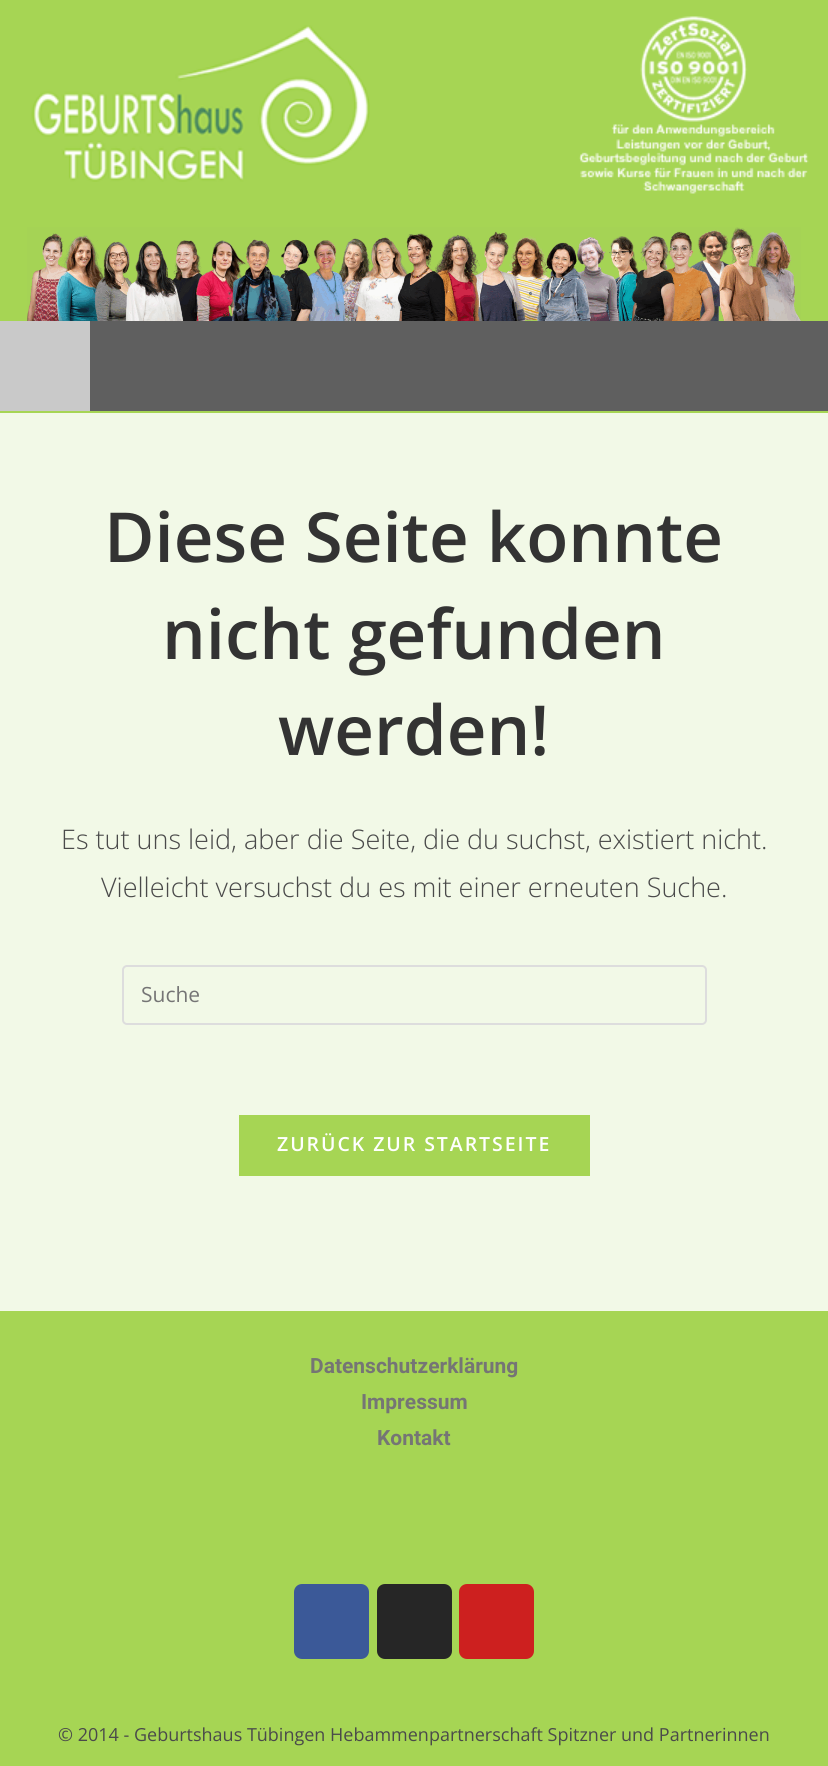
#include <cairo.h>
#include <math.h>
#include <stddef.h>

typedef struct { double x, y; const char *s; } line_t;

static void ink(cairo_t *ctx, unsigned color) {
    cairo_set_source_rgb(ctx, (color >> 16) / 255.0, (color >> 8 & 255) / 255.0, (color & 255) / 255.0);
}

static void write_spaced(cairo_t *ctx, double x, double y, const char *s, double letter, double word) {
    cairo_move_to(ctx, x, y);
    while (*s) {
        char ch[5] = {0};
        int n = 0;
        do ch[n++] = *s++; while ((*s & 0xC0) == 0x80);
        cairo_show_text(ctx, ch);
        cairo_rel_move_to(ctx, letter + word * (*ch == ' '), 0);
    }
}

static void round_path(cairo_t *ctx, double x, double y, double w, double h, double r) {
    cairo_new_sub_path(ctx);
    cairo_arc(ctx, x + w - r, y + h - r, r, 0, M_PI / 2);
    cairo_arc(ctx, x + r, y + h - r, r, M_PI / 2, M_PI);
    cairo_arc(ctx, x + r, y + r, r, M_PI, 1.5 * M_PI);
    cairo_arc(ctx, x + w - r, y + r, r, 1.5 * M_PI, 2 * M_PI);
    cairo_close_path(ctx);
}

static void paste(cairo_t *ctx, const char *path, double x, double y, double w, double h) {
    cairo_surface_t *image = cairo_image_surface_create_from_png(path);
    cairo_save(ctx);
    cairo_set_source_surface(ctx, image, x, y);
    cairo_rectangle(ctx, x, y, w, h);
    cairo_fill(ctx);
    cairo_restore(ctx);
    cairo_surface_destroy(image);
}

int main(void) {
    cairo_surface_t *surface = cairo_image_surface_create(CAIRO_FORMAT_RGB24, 828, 1766);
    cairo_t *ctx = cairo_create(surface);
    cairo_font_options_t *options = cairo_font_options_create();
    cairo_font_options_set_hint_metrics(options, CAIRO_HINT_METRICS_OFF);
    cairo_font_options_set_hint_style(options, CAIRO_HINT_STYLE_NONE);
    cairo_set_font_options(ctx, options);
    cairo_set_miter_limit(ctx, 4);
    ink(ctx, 0xF2F9E7);
    cairo_paint(ctx);
    ink(ctx, 0xA6D554);
    cairo_rectangle(ctx, 0, 0, 828, 413);
    cairo_fill(ctx);
    paste(ctx, "media/1.png", 31, 25, 339, 157);
    paste(ctx, "media/2.png", 579, 16, 230, 178);
    paste(ctx, "media/3.png", 27, 227, 774, 94);
    ink(ctx, 0xC9C9C9);
    cairo_rectangle(ctx, 0, 321, 90, 90);
    cairo_fill(ctx);
    ink(ctx, 0x5F5F5F);
    cairo_rectangle(ctx, 90, 321, 738, 90);
    cairo_fill(ctx);
    cairo_select_font_face(ctx, "Open Sans SemiBold", CAIRO_FONT_SLANT_NORMAL, CAIRO_FONT_WEIGHT_NORMAL);
    cairo_set_font_size(ctx, 69);
    ink(ctx, 0x333333);
    {
        static const line_t items[] = {
            {104, 562, "Diese Seite konnte"},
            {162, 659, "nicht gefunden"},
            {278, 755, "werden!"},
        };
        for (size_t i = 0; i < sizeof items / sizeof *items; i++) {
            cairo_move_to(ctx, items[i].x, items[i].y);
            cairo_show_text(ctx, items[i].s);
        }
    }
    cairo_select_font_face(ctx, "Open Sans Light", CAIRO_FONT_SLANT_NORMAL, CAIRO_FONT_WEIGHT_NORMAL);
    cairo_set_font_size(ctx, 27);
    ink(ctx, 0x4A4A4A);
    cairo_move_to(ctx, 61, 849);
    cairo_show_text(ctx, "Es tut uns leid, aber die Seite, die du suchst, existiert nicht.");
    cairo_move_to(ctx, 101, 897);
    cairo_show_text(ctx, "Vielleicht versuchst du es mit einer erneuten Suche.");
    round_path(ctx, 123, 966, 583, 58, 4);
    ink(ctx, 0xDDDDDD);
    cairo_stroke(ctx);
    cairo_select_font_face(ctx, "Open Sans", CAIRO_FONT_SLANT_NORMAL, CAIRO_FONT_WEIGHT_NORMAL);
    cairo_set_font_size(ctx, 21);
    ink(ctx, 0x757575);
    cairo_move_to(ctx, 141, 1002);
    cairo_show_text(ctx, "Suche");
    ink(ctx, 0xA6D554);
    cairo_rectangle(ctx, 239, 1115, 351, 61);
    cairo_fill(ctx);
    cairo_select_font_face(ctx, "Open Sans SemiBold", CAIRO_FONT_SLANT_NORMAL, CAIRO_FONT_WEIGHT_NORMAL);
    cairo_set_font_size(ctx, 19.5);
    ink(ctx, 0xFFFFFF);
    write_spaced(ctx, 277, 1151, "ZURÜCK ZUR STARTSEITE", 1.95, 0);
    ink(ctx, 0xA6D554);
    cairo_rectangle(ctx, 0, 1311, 828, 455);
    cairo_fill(ctx);
    cairo_select_font_face(ctx, "Roboto", CAIRO_FONT_SLANT_NORMAL, CAIRO_FONT_WEIGHT_BOLD);
    cairo_set_font_size(ctx, 21);
    ink(ctx, 0x757575);
    {
        static const line_t items[] = {
            {310, 1373, "Datenschutzerklärung"},
            {361, 1409, "Impressum"},
            {377, 1445, "Kontakt"},
        };
        for (size_t i = 0; i < sizeof items / sizeof *items; i++) {
            cairo_move_to(ctx, items[i].x, items[i].y);
            cairo_show_text(ctx, items[i].s);
        }
    }
    ink(ctx, 0x3B5998);
    round_path(ctx, 294, 1584, 75, 75, 8);
    cairo_fill(ctx);
    ink(ctx, 0x262626);
    round_path(ctx, 377, 1584, 75, 75, 8);
    cairo_fill(ctx);
    ink(ctx, 0xCD201F);
    round_path(ctx, 459, 1584, 75, 75, 8);
    cairo_fill(ctx);
    cairo_select_font_face(ctx, "Open Sans", CAIRO_FONT_SLANT_NORMAL, CAIRO_FONT_WEIGHT_NORMAL);
    cairo_set_font_size(ctx, 18);
    ink(ctx, 0x4A4A4A);
    cairo_move_to(ctx, 58, 1741);
    cairo_show_text(ctx, "© 2014 - Geburtshaus Tübingen Hebammenpartnerschaft Spitzner und Partnerinnen");
    cairo_surface_write_to_png(surface, "image.png");
    cairo_font_options_destroy(options);
    cairo_destroy(ctx);
    cairo_surface_destroy(surface);
    return 0;
}
